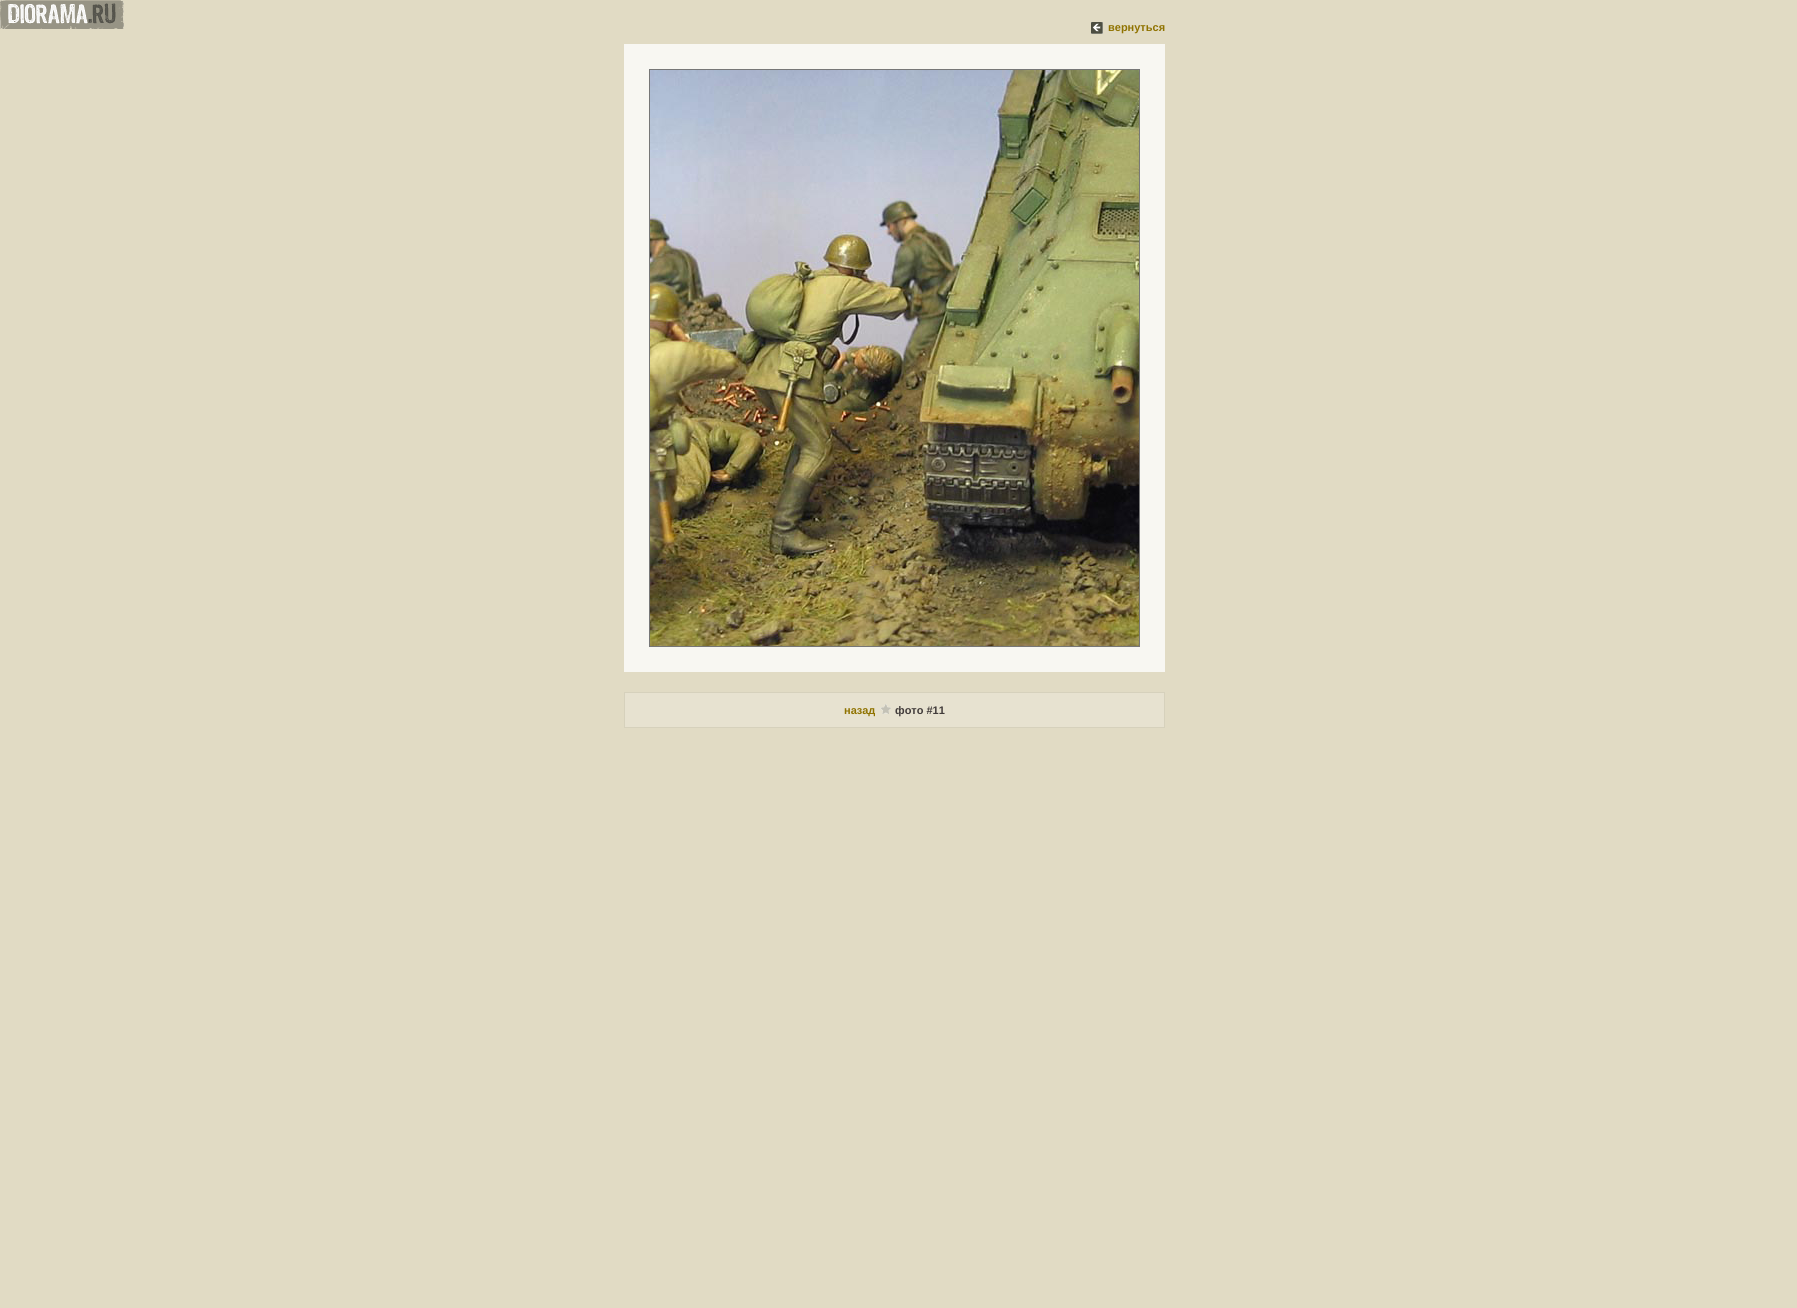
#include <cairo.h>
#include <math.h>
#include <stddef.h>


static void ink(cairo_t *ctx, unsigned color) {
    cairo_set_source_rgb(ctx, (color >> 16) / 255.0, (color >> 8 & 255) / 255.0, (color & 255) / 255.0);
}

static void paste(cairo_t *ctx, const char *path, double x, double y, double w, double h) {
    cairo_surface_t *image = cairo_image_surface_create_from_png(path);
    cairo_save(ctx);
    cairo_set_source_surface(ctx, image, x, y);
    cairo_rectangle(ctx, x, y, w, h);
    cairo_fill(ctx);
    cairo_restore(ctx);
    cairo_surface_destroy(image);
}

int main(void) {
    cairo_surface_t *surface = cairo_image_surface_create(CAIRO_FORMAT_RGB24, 1797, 1308);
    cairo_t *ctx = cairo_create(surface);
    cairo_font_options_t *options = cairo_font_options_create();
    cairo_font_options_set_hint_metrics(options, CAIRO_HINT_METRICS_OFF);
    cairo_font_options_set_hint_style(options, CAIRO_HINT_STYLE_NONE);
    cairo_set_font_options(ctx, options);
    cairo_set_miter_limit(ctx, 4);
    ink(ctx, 0xE1DBC4);
    cairo_paint(ctx);
    paste(ctx, "media/1.png", 0, 0, 124, 29);
    paste(ctx, "media/2.png", 1091, 22, 12, 12);
    cairo_select_font_face(ctx, "Liberation Sans", CAIRO_FONT_SLANT_NORMAL, CAIRO_FONT_WEIGHT_BOLD);
    cairo_set_font_size(ctx, 11);
    ink(ctx, 0x907300);
    cairo_move_to(ctx, 1108, 31);
    cairo_show_text(ctx, "вернуться");
    ink(ctx, 0xF8F7F2);
    cairo_rectangle(ctx, 624, 44, 541, 628);
    cairo_fill(ctx);
    cairo_rectangle(ctx, 649.5, 69.5, 490, 577);
    ink(ctx, 0x777777);
    cairo_set_line_width(ctx, 1);
    cairo_stroke(ctx);
    paste(ctx, "media/3.png", 650, 70, 489, 576);
    ink(ctx, 0xE7E2D0);
    cairo_rectangle(ctx, 624.5, 692.5, 540, 35);
    cairo_fill_preserve(ctx);
    ink(ctx, 0xD6D1BC);
    cairo_stroke(ctx);
    ink(ctx, 0x907300);
    cairo_move_to(ctx, 844, 714);
    cairo_show_text(ctx, "назад");
    paste(ctx, "media/4.png", 880, 704, 11, 10);
    ink(ctx, 0x423C3B);
    cairo_move_to(ctx, 895, 714);
    cairo_show_text(ctx, "фото #11");
    cairo_surface_write_to_png(surface, "image.png");
    cairo_font_options_destroy(options);
    cairo_destroy(ctx);
    cairo_surface_destroy(surface);
    return 0;
}
